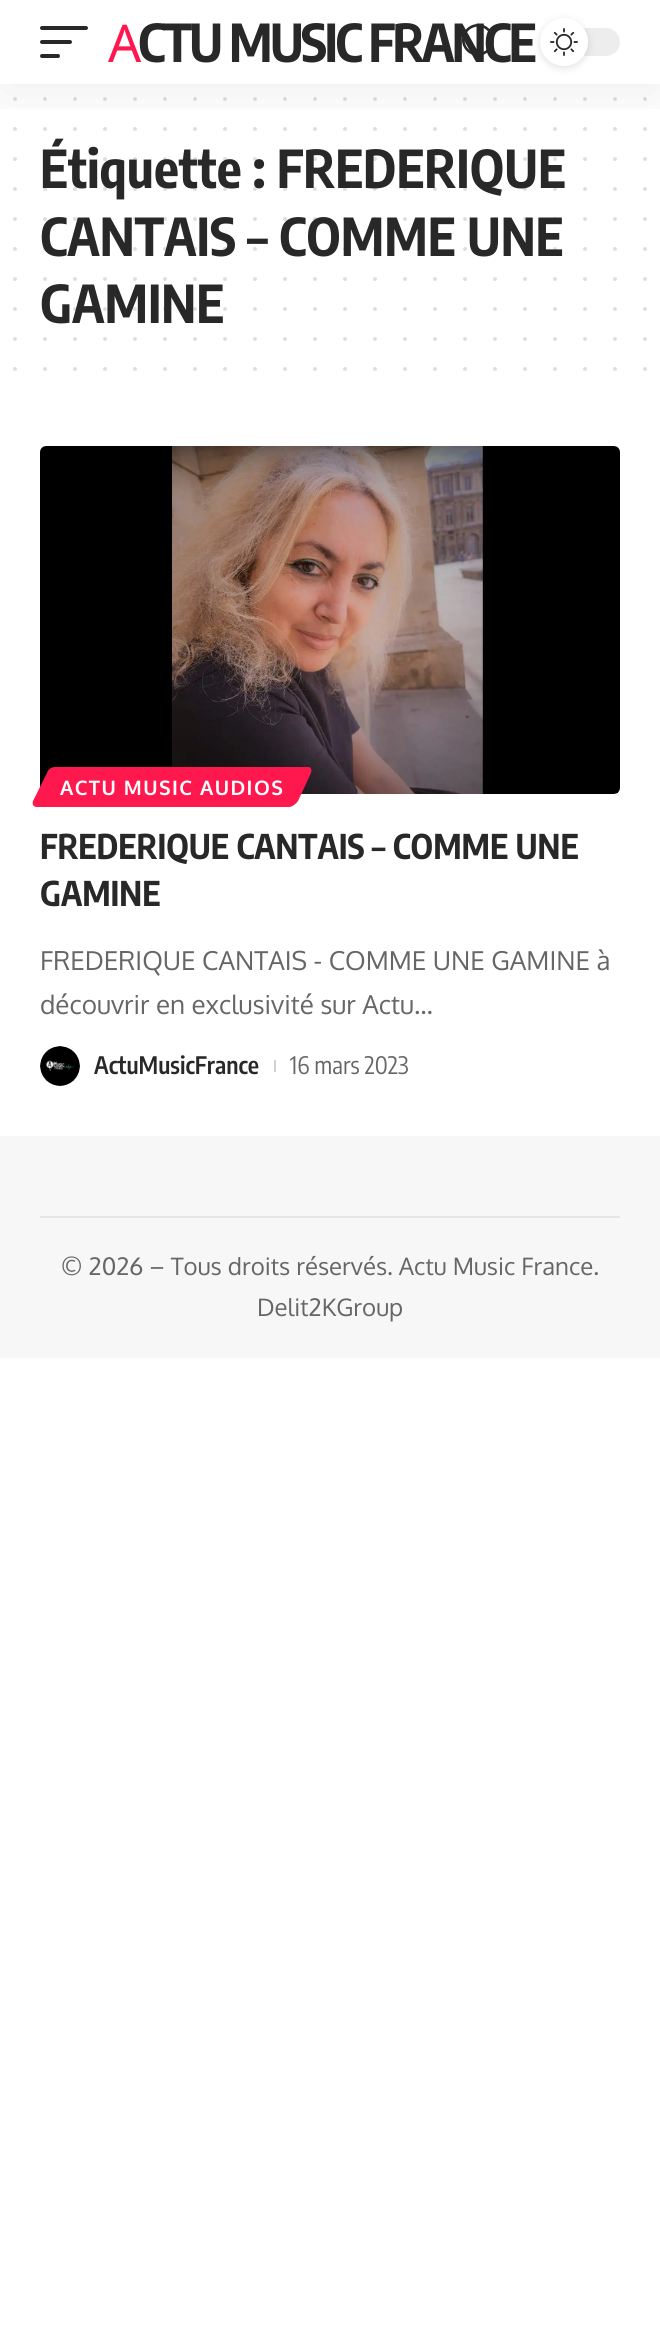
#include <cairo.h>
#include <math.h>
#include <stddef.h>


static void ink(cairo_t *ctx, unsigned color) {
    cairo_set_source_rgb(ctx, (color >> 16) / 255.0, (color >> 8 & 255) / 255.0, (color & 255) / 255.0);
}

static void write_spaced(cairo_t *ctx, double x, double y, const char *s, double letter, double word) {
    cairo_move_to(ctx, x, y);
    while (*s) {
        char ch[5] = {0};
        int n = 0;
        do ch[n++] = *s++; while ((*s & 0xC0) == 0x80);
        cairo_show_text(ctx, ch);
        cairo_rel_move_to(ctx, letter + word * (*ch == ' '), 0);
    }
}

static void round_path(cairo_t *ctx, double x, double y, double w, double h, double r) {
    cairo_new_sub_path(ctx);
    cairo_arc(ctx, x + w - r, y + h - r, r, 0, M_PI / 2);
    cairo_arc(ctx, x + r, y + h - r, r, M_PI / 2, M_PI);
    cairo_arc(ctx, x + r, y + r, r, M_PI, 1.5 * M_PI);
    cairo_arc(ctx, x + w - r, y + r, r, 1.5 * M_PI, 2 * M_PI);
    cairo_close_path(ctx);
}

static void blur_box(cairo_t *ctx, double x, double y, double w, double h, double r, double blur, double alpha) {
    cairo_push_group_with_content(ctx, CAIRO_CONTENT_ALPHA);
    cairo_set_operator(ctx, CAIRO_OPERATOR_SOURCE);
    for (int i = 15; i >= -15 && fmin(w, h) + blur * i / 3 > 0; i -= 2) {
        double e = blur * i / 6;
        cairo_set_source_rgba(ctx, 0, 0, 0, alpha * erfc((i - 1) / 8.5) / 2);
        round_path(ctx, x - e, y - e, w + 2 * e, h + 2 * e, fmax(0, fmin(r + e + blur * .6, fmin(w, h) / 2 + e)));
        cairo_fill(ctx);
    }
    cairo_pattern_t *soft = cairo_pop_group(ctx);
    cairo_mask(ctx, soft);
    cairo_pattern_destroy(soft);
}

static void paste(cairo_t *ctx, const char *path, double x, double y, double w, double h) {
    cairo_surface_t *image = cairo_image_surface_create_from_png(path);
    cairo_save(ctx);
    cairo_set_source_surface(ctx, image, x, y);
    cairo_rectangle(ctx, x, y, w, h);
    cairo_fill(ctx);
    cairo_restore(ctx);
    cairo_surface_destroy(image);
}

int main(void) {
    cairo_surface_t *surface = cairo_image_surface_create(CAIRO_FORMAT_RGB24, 660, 2335);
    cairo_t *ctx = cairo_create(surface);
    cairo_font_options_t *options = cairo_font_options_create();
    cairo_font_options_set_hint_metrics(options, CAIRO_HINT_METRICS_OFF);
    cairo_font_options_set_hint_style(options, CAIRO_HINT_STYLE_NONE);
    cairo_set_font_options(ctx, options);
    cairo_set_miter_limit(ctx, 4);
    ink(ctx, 0xFFFFFF);
    cairo_paint(ctx);
    cairo_new_path(ctx);
    cairo_move_to(ctx, 15, 99);
    cairo_line_to(ctx, 645.4, 99);
    ink(ctx, 0xDFDFDF);
    cairo_set_line_width(ctx, 4);
    cairo_set_line_cap(ctx, CAIRO_LINE_CAP_ROUND);
    cairo_set_dash(ctx, (double[]){0, 30}, 2, 0);
    cairo_stroke(ctx);
    cairo_new_path(ctx);
    cairo_move_to(ctx, 15, 129);
    cairo_line_to(ctx, 645.4, 129);
    cairo_stroke(ctx);
    cairo_select_font_face(ctx, "Encode Sans Condensed", CAIRO_FONT_SLANT_NORMAL, CAIRO_FONT_WEIGHT_BOLD);
    cairo_set_font_size(ctx, 52);
    ink(ctx, 0x282828);
    cairo_move_to(ctx, 40, 188);
    cairo_show_text(ctx, "Étiquette : FREDERIQUE");
    cairo_new_path(ctx);
    cairo_move_to(ctx, 15, 159);
    cairo_line_to(ctx, 645.4, 159);
    cairo_set_source_rgba(ctx, 0.157, 0.157, 0.157, 0.15);
    cairo_stroke(ctx);
    cairo_save(ctx);
    cairo_rectangle(ctx, 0, 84, 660, 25);
    cairo_clip(ctx);
    ink(ctx, 0x000000);
    blur_box(ctx, 0, 8, 660, 84, 0, 30, 0.07);
    cairo_restore(ctx);
    ink(ctx, 0x282828);
    round_path(ctx, 40, 26, 48, 4, 2);
    cairo_fill(ctx);
    round_path(ctx, 40, 40, 32, 4, 2);
    cairo_fill(ctx);
    round_path(ctx, 40, 54, 20, 4, 2);
    cairo_fill(ctx);
    cairo_select_font_face(ctx, "Noto Sans", CAIRO_FONT_SLANT_NORMAL, CAIRO_FONT_WEIGHT_NORMAL);
    ink(ctx, 0xFF184E);
    write_spaced(ctx, 108, 62, "A", -2.6, 0);
    cairo_select_font_face(ctx, "Encode Sans Condensed", CAIRO_FONT_SLANT_NORMAL, CAIRO_FONT_WEIGHT_BOLD);
    ink(ctx, 0x282828);
    write_spaced(ctx, 138, 62, "CTU MUSIC FRANCE", -2.6, 0);
    paste(ctx, "media/1.png", 462, 24, 32, 31);
    cairo_set_source_rgba(ctx, 0.157, 0.157, 0.157, 0.12);
    cairo_rectangle(ctx, 519, 28, 1, 28);
    cairo_fill(ctx);
    ink(ctx, 0xEDEDED);
    round_path(ctx, 540, 28, 80, 28, 14);
    cairo_fill(ctx);
    ink(ctx, 0x000000);
    blur_box(ctx, 540, 20, 48, 48, 24, 4, 0.12);
    ink(ctx, 0xFFFFFF);
    cairo_arc(ctx, 564, 42, 24, 0, 2 * M_PI);
    cairo_fill(ctx);
    paste(ctx, "media/2.png", 550, 28, 28, 28);
    cairo_new_path(ctx);
    cairo_move_to(ctx, 15, 189);
    cairo_line_to(ctx, 645.4, 189);
    cairo_set_source_rgba(ctx, 0.157, 0.157, 0.157, 0.15);
    cairo_stroke(ctx);
    ink(ctx, 0x282828);
    cairo_move_to(ctx, 40, 256);
    cairo_show_text(ctx, "CANTAIS – COMME UNE");
    cairo_new_path(ctx);
    cairo_move_to(ctx, 15, 219);
    cairo_line_to(ctx, 645.4, 219);
    cairo_set_source_rgba(ctx, 0.157, 0.157, 0.157, 0.15);
    cairo_stroke(ctx);
    cairo_new_path(ctx);
    cairo_move_to(ctx, 15, 249);
    cairo_line_to(ctx, 645.4, 249);
    cairo_stroke(ctx);
    cairo_new_path(ctx);
    cairo_move_to(ctx, 15, 279);
    cairo_line_to(ctx, 645.4, 279);
    ink(ctx, 0xDFDFDF);
    cairo_stroke(ctx);
    ink(ctx, 0x282828);
    cairo_move_to(ctx, 40, 323);
    cairo_show_text(ctx, "GAMINE");
    cairo_new_path(ctx);
    cairo_move_to(ctx, 15, 309);
    cairo_line_to(ctx, 645.4, 309);
    cairo_set_source_rgba(ctx, 0.157, 0.157, 0.157, 0.15);
    cairo_stroke(ctx);
    cairo_new_path(ctx);
    cairo_move_to(ctx, 15, 339);
    cairo_line_to(ctx, 645.4, 339);
    ink(ctx, 0xDFDFDF);
    cairo_stroke(ctx);
    cairo_new_path(ctx);
    cairo_move_to(ctx, 15, 369);
    cairo_line_to(ctx, 645.4, 369);
    cairo_stroke(ctx);
    paste(ctx, "media/3.png", 40, 446, 580, 348);
    ink(ctx, 0xFF184E);
    cairo_new_path(ctx);
    cairo_move_to(ctx, 55, 767);
    cairo_line_to(ctx, 308, 767);
    cairo_curve_to(ctx, 311, 767, 312, 769, 311, 773);
    cairo_line_to(ctx, 298, 801);
    cairo_curve_to(ctx, 296, 804, 292, 807, 289, 807);
    cairo_line_to(ctx, 37, 807);
    cairo_curve_to(ctx, 33, 807, 32, 804, 33, 801);
    cairo_line_to(ctx, 47, 773);
    cairo_curve_to(ctx, 48, 769, 52, 767, 55, 767);
    cairo_close_path(ctx);
    cairo_fill(ctx);
    cairo_select_font_face(ctx, "Oxygen", CAIRO_FONT_SLANT_NORMAL, CAIRO_FONT_WEIGHT_BOLD);
    cairo_set_font_size(ctx, 20);
    ink(ctx, 0xFFFFFF);
    write_spaced(ctx, 60, 795, "ACTU MUSIC AUDIOS", 1.4, 0);
    cairo_select_font_face(ctx, "Encode Sans Condensed", CAIRO_FONT_SLANT_NORMAL, CAIRO_FONT_WEIGHT_BOLD);
    cairo_set_font_size(ctx, 34);
    ink(ctx, 0x282828);
    cairo_move_to(ctx, 40, 859);
    cairo_show_text(ctx, "FREDERIQUE CANTAIS – COMME UNE");
    cairo_move_to(ctx, 40, 906);
    cairo_show_text(ctx, "GAMINE");
    cairo_select_font_face(ctx, "Oxygen", CAIRO_FONT_SLANT_NORMAL, CAIRO_FONT_WEIGHT_NORMAL);
    cairo_set_font_size(ctx, 26);
    ink(ctx, 0x666666);
    cairo_move_to(ctx, 40, 970);
    cairo_show_text(ctx, "FREDERIQUE CANTAIS - COMME UNE GAMINE à");
    cairo_move_to(ctx, 40, 1014);
    cairo_show_text(ctx, "découvrir en exclusivité sur Actu…");
    paste(ctx, "media/4.png", 40, 1046, 40, 40);
    cairo_select_font_face(ctx, "Encode Sans Condensed SemiBold", CAIRO_FONT_SLANT_NORMAL, CAIRO_FONT_WEIGHT_NORMAL);
    cairo_set_font_size(ctx, 24);
    ink(ctx, 0x282828);
    cairo_move_to(ctx, 94, 1074);
    cairo_show_text(ctx, "ActuMusicFrance");
    ink(ctx, 0xD1D1D1);
    cairo_rectangle(ctx, 274, 1060, 2, 12);
    cairo_fill(ctx);
    cairo_select_font_face(ctx, "Encode Sans Condensed", CAIRO_FONT_SLANT_NORMAL, CAIRO_FONT_WEIGHT_NORMAL);
    ink(ctx, 0x666666);
    cairo_move_to(ctx, 290, 1074);
    cairo_show_text(ctx, "16 mars 2023");
    ink(ctx, 0xF7F7F7);
    cairo_rectangle(ctx, 0, 1136, 660, 222);
    cairo_fill(ctx);
    ink(ctx, 0xE6E6E6);
    cairo_rectangle(ctx, 40, 1216, 580, 2);
    cairo_fill(ctx);
    cairo_select_font_face(ctx, "Oxygen", CAIRO_FONT_SLANT_NORMAL, CAIRO_FONT_WEIGHT_NORMAL);
    ink(ctx, 0x666666);
    cairo_move_to(ctx, 61, 1275);
    cairo_show_text(ctx, "© 2026 – Tous droits réservés. Actu Music France.");
    cairo_move_to(ctx, 257, 1316);
    cairo_show_text(ctx, "Delit2KGroup");
    cairo_surface_write_to_png(surface, "image.png");
    cairo_font_options_destroy(options);
    cairo_destroy(ctx);
    cairo_surface_destroy(surface);
    return 0;
}
